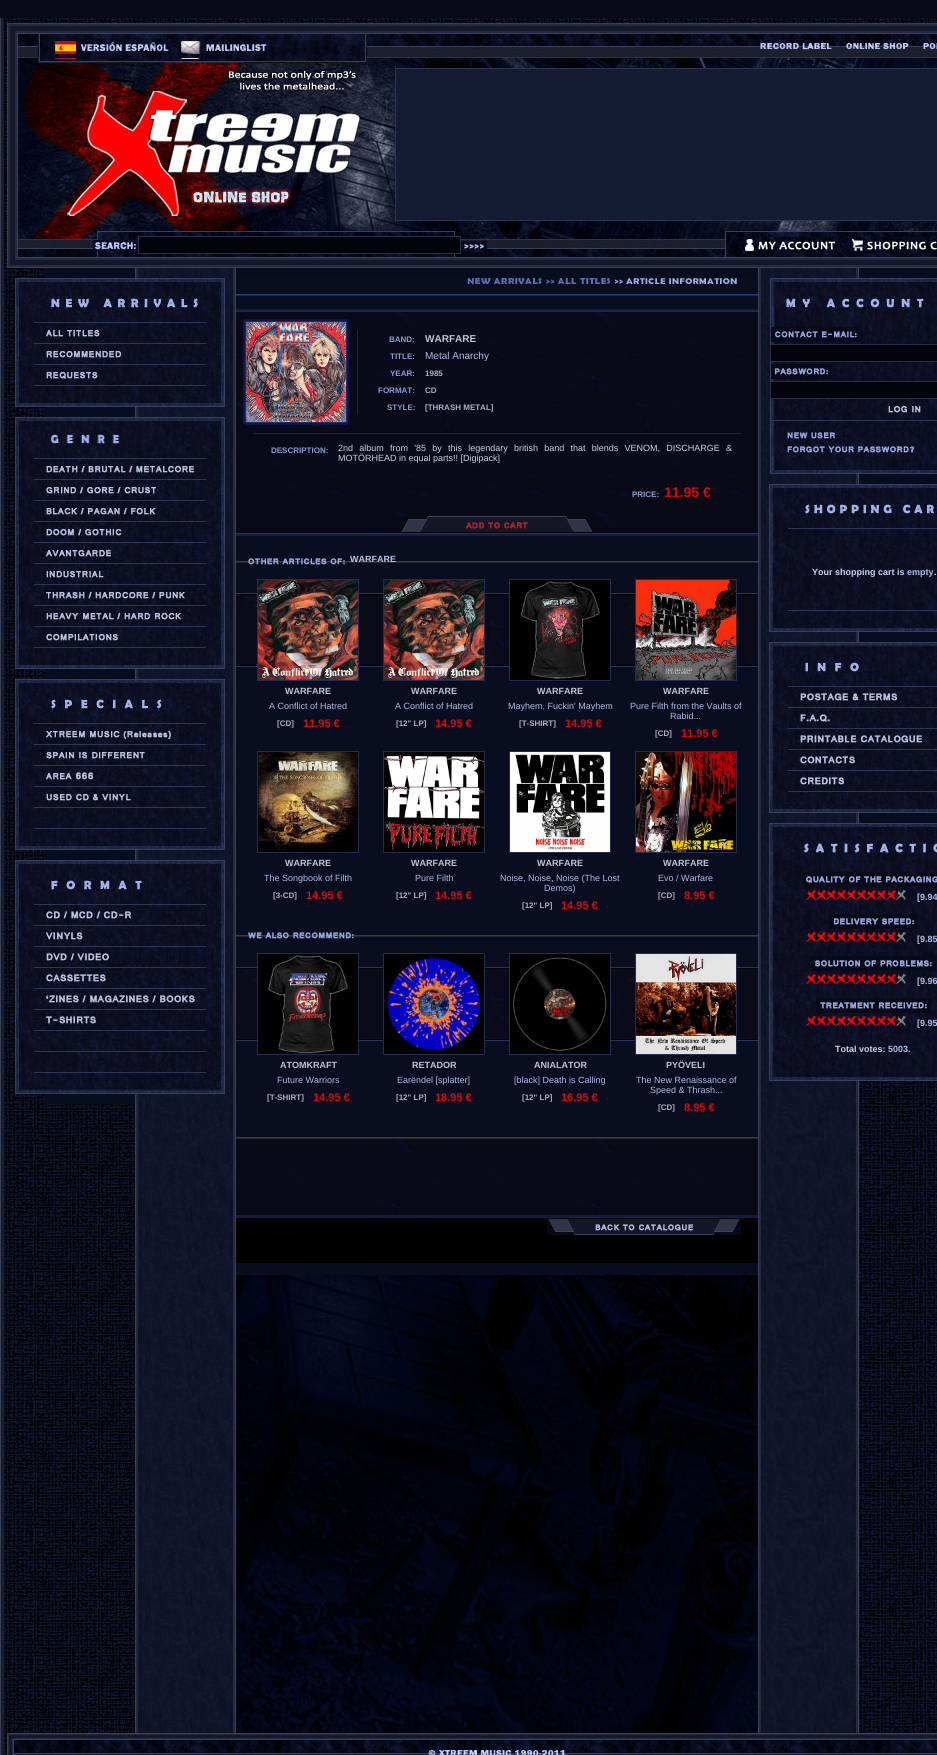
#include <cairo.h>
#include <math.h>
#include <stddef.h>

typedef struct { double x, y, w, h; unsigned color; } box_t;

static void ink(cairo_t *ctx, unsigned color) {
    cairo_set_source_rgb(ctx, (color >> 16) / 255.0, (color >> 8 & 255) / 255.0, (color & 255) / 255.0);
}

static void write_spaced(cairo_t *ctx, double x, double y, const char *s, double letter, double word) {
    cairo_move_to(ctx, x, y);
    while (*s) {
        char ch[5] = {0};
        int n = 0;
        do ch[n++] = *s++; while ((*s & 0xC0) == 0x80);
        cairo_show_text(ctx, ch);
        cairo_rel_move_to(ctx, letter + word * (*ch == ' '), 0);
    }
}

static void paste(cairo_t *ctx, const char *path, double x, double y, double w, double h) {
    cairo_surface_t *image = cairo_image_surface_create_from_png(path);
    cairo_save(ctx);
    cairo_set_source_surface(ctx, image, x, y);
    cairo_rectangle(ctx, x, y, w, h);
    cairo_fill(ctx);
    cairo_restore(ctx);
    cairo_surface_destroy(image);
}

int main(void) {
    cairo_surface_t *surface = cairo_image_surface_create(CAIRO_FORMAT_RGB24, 937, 1755);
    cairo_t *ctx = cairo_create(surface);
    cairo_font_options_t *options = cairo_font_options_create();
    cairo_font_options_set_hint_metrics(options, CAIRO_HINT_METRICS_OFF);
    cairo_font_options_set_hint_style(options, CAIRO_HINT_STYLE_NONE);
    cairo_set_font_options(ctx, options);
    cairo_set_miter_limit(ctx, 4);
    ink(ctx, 0x070A17);
    cairo_paint(ctx);
    paste(ctx, "media/1.png", 0, 18, 937, 250);
    paste(ctx, "media/2.png", 53, 39, 118, 20);
    paste(ctx, "media/3.png", 179, 39, 90, 20);
    paste(ctx, "media/4.png", 757, 40, 78, 12);
    paste(ctx, "media/5.png", 843, 40, 69, 12);
    paste(ctx, "media/6.png", 920, 40, 17, 12);
    paste(ctx, "media/7.png", 93, 240, 45, 11);
    ink(ctx, 0x02030B);
    cairo_rectangle(ctx, 138.5, 236.5, 322, 17);
    cairo_fill_preserve(ctx);
    ink(ctx, 0x2A2F42);
    cairo_set_line_width(ctx, 1);
    cairo_stroke(ctx);
    paste(ctx, "media/8.png", 461, 241, 26, 11);
    paste(ctx, "media/9.png", 743, 237, 95, 16);
    paste(ctx, "media/10.png", 850, 237, 87, 16);
    paste(ctx, "media/11.png", 0, 268, 236, 1465);
    ink(ctx, 0x070C1F);
    cairo_rectangle(ctx, 45, 268, 90, 10);
    cairo_fill(ctx);
    paste(ctx, "media/12.png", 15, 282, 210, 125);
    paste(ctx, "media/13.png", 15, 278, 210, 4);
    paste(ctx, "media/14.png", 48, 296, 153, 14);
    ink(ctx, 0x2E3653);
    cairo_rectangle(ctx, 34, 322, 172, 1);
    cairo_fill(ctx);
    paste(ctx, "media/15.png", 39, 326, 162, 14);
    cairo_rectangle(ctx, 34, 343, 172, 1);
    cairo_fill(ctx);
    paste(ctx, "media/16.png", 39, 347, 162, 14);
    cairo_rectangle(ctx, 34, 364, 172, 1);
    cairo_fill(ctx);
    paste(ctx, "media/17.png", 39, 368, 162, 14);
    cairo_rectangle(ctx, 34, 385, 172, 1);
    cairo_fill(ctx);
    paste(ctx, "media/18.png", 15, 403, 209, 4);
    ink(ctx, 0x070C1F);
    cairo_rectangle(ctx, 45, 407, 90, 10);
    cairo_fill(ctx);
    paste(ctx, "media/19.png", 15, 421, 210, 244);
    paste(ctx, "media/13.png", 15, 417, 210, 4);
    paste(ctx, "media/20.png", 48, 432, 74, 14);
    ink(ctx, 0x2E3653);
    cairo_rectangle(ctx, 34, 458, 172, 1);
    cairo_fill(ctx);
    paste(ctx, "media/21.png", 39, 462, 162, 14);
    cairo_rectangle(ctx, 34, 479, 172, 1);
    cairo_fill(ctx);
    paste(ctx, "media/22.png", 39, 483, 162, 14);
    cairo_rectangle(ctx, 34, 500, 172, 1);
    cairo_fill(ctx);
    paste(ctx, "media/23.png", 39, 504, 162, 14);
    cairo_rectangle(ctx, 34, 521, 172, 1);
    cairo_fill(ctx);
    paste(ctx, "media/24.png", 39, 525, 162, 14);
    cairo_rectangle(ctx, 34, 542, 172, 1);
    cairo_fill(ctx);
    paste(ctx, "media/25.png", 39, 546, 162, 14);
    cairo_rectangle(ctx, 34, 563, 172, 1);
    cairo_fill(ctx);
    paste(ctx, "media/26.png", 39, 567, 162, 14);
    cairo_rectangle(ctx, 34, 584, 172, 1);
    cairo_fill(ctx);
    paste(ctx, "media/27.png", 39, 588, 162, 14);
    cairo_rectangle(ctx, 34, 605, 172, 1);
    cairo_fill(ctx);
    paste(ctx, "media/28.png", 39, 609, 162, 14);
    cairo_rectangle(ctx, 34, 626, 172, 1);
    cairo_fill(ctx);
    paste(ctx, "media/29.png", 39, 630, 162, 14);
    cairo_rectangle(ctx, 34, 647, 172, 1);
    cairo_fill(ctx);
    paste(ctx, "media/30.png", 15, 665, 210, 4);
    ink(ctx, 0x070C1F);
    cairo_rectangle(ctx, 45, 669, 90, 10);
    cairo_fill(ctx);
    paste(ctx, "media/31.png", 15, 683, 210, 163);
    paste(ctx, "media/13.png", 15, 679, 210, 4);
    paste(ctx, "media/32.png", 48, 697, 116, 14);
    ink(ctx, 0x2E3653);
    cairo_rectangle(ctx, 34, 723, 172, 1);
    cairo_fill(ctx);
    paste(ctx, "media/33.png", 39, 727, 162, 14);
    cairo_rectangle(ctx, 34, 744, 172, 1);
    cairo_fill(ctx);
    paste(ctx, "media/34.png", 39, 748, 162, 14);
    cairo_rectangle(ctx, 34, 765, 172, 1);
    cairo_fill(ctx);
    paste(ctx, "media/35.png", 39, 769, 162, 14);
    cairo_rectangle(ctx, 34, 786, 172, 1);
    cairo_fill(ctx);
    paste(ctx, "media/36.png", 39, 790, 162, 14);
    cairo_rectangle(ctx, 34, 807, 172, 1);
    cairo_fill(ctx);
    cairo_rectangle(ctx, 34, 828, 172, 1);
    cairo_fill(ctx);
    paste(ctx, "media/30.png", 15, 846, 210, 4);
    ink(ctx, 0x070C1F);
    cairo_rectangle(ctx, 45, 850, 90, 10);
    cairo_fill(ctx);
    paste(ctx, "media/37.png", 15, 864, 210, 226);
    paste(ctx, "media/13.png", 15, 860, 210, 4);
    paste(ctx, "media/38.png", 48, 878, 97, 14);
    ink(ctx, 0x2E3653);
    cairo_rectangle(ctx, 34, 904, 172, 1);
    cairo_fill(ctx);
    paste(ctx, "media/39.png", 39, 908, 162, 14);
    cairo_rectangle(ctx, 34, 925, 172, 1);
    cairo_fill(ctx);
    paste(ctx, "media/40.png", 39, 929, 162, 14);
    cairo_rectangle(ctx, 34, 946, 172, 1);
    cairo_fill(ctx);
    paste(ctx, "media/41.png", 39, 950, 162, 14);
    cairo_rectangle(ctx, 34, 967, 172, 1);
    cairo_fill(ctx);
    paste(ctx, "media/42.png", 39, 971, 162, 14);
    cairo_rectangle(ctx, 34, 988, 172, 1);
    cairo_fill(ctx);
    paste(ctx, "media/43.png", 39, 992, 162, 14);
    cairo_rectangle(ctx, 34, 1009, 172, 1);
    cairo_fill(ctx);
    paste(ctx, "media/44.png", 39, 1013, 162, 14);
    {
        static const box_t items[] = {
            {34, 1030, 172, 1, 0x2E3653},
            {34, 1051, 172, 1, 0x2E3653},
            {34, 1072, 172, 1, 0x2E3653},
        };
        for (size_t i = 0; i < sizeof items / sizeof *items; i++) {
            ink(ctx, items[i].color);
            cairo_rectangle(ctx, items[i].x, items[i].y, items[i].w, items[i].h);
            cairo_fill(ctx);
        }
    }
    paste(ctx, "media/30.png", 15, 1090, 210, 4);
    ink(ctx, 0x070C1F);
    cairo_rectangle(ctx, 45, 1094, 90, 10);
    cairo_fill(ctx);
    paste(ctx, "media/45.png", 236, 268, 522, 1465);
    paste(ctx, "media/46.png", 236, 276, 522, 20);
    paste(ctx, "media/47.png", 467, 278, 75, 6);
    paste(ctx, "media/48.png", 546, 278, 64, 6);
    paste(ctx, "media/49.png", 614, 278, 123, 6);
    paste(ctx, "media/50.png", 236, 296, 522, 16);
    paste(ctx, "media/51.png", 236, 312, 522, 221);
    paste(ctx, "media/52.png", 243, 319, 106, 106);
    cairo_rectangle(ctx, 245.5, 321.5, 101, 101);
    ink(ctx, 0x242C51);
    cairo_stroke(ctx);
    paste(ctx, "media/53.png", 246, 322, 100, 100);
    ink(ctx, 0x1E2440);
    cairo_rectangle(ctx, 357, 330, 1, 85);
    cairo_fill(ctx);
    cairo_select_font_face(ctx, "Liberation Sans", CAIRO_FONT_SLANT_NORMAL, CAIRO_FONT_WEIGHT_BOLD);
    cairo_set_font_size(ctx, 8);
    ink(ctx, 0x8D9CD5);
    cairo_move_to(ctx, 389, 342);
    cairo_show_text(ctx, "BAND:");
    cairo_set_font_size(ctx, 10);
    ink(ctx, 0xBFC4D8);
    cairo_move_to(ctx, 425, 342);
    cairo_show_text(ctx, "WARFARE");
    cairo_set_font_size(ctx, 8);
    ink(ctx, 0x8D9CD5);
    cairo_move_to(ctx, 390, 359);
    cairo_show_text(ctx, "TITLE:");
    cairo_select_font_face(ctx, "Liberation Sans", CAIRO_FONT_SLANT_NORMAL, CAIRO_FONT_WEIGHT_NORMAL);
    cairo_set_font_size(ctx, 10);
    ink(ctx, 0xB1BCE4);
    cairo_move_to(ctx, 425, 359);
    cairo_show_text(ctx, "Metal Anarchy");
    cairo_select_font_face(ctx, "Liberation Sans", CAIRO_FONT_SLANT_NORMAL, CAIRO_FONT_WEIGHT_BOLD);
    cairo_set_font_size(ctx, 8);
    ink(ctx, 0x8D9CD5);
    cairo_move_to(ctx, 390, 376);
    cairo_show_text(ctx, "YEAR:");
    ink(ctx, 0xABB1C4);
    cairo_move_to(ctx, 425, 376);
    cairo_show_text(ctx, "1985");
    ink(ctx, 0x8D9CD5);
    cairo_move_to(ctx, 378, 393);
    cairo_show_text(ctx, "FORMAT:");
    ink(ctx, 0xABB1C4);
    cairo_move_to(ctx, 425, 393);
    cairo_show_text(ctx, "CD");
    ink(ctx, 0x8D9CD5);
    cairo_move_to(ctx, 387, 410);
    cairo_show_text(ctx, "STYLE:");
    ink(ctx, 0xABB1C4);
    cairo_move_to(ctx, 425, 410);
    cairo_show_text(ctx, "[THRASH METAL]");
    ink(ctx, 0x1E2440);
    cairo_rectangle(ctx, 253, 433, 488, 1);
    cairo_fill(ctx);
    ink(ctx, 0x8D9CD5);
    cairo_move_to(ctx, 271, 453);
    cairo_show_text(ctx, "DESCRIPTION:");
    cairo_select_font_face(ctx, "Liberation Sans", CAIRO_FONT_SLANT_NORMAL, CAIRO_FONT_WEIGHT_NORMAL);
    cairo_set_font_size(ctx, 9);
    ink(ctx, 0xCFD3DF);
    write_spaced(ctx, 338, 451, "2nd album from '85 by this legendary british band that blends VENOM, DISCHARGE &", 0, 3.75);
    cairo_move_to(ctx, 338, 461);
    cairo_show_text(ctx, "MOTÖRHEAD in equal parts!! [Digipack]");
    cairo_select_font_face(ctx, "Liberation Sans", CAIRO_FONT_SLANT_NORMAL, CAIRO_FONT_WEIGHT_BOLD);
    cairo_set_font_size(ctx, 8);
    ink(ctx, 0x8D9CD5);
    cairo_move_to(ctx, 632, 497);
    cairo_show_text(ctx, "PRICE:");
    cairo_set_font_size(ctx, 14);
    ink(ctx, 0xD80A0A);
    cairo_move_to(ctx, 664, 497);
    cairo_show_text(ctx, "11.95 €");
    paste(ctx, "media/54.png", 400, 516, 194, 17);
    paste(ctx, "media/55.png", 465, 519, 63, 10);
    paste(ctx, "media/56.png", 236, 533, 522, 36);
    paste(ctx, "media/57.png", 248, 558, 97, 7);
    cairo_set_font_size(ctx, 9);
    ink(ctx, 0xB8C3EC);
    cairo_move_to(ctx, 350, 562);
    cairo_show_text(ctx, "WARFARE");
    ink(ctx, 0x080D1F);
    cairo_rectangle(ctx, 236, 569, 522, 359);
    cairo_fill(ctx);
    paste(ctx, "media/58.png", 236, 593, 522, 74);
    cairo_rectangle(ctx, 257.5, 579.5, 101, 101);
    ink(ctx, 0x242C51);
    cairo_stroke(ctx);
    paste(ctx, "media/59.png", 258, 580, 100, 100);
    ink(ctx, 0xBFC4D8);
    cairo_move_to(ctx, 285, 694);
    cairo_show_text(ctx, "WARFARE");
    cairo_select_font_face(ctx, "Liberation Sans", CAIRO_FONT_SLANT_NORMAL, CAIRO_FONT_WEIGHT_NORMAL);
    ink(ctx, 0xB1BCE4);
    cairo_move_to(ctx, 269, 709);
    cairo_show_text(ctx, "A Conflict of Hatred");
    cairo_select_font_face(ctx, "Liberation Sans", CAIRO_FONT_SLANT_NORMAL, CAIRO_FONT_WEIGHT_BOLD);
    cairo_set_font_size(ctx, 8);
    ink(ctx, 0xABB1C4);
    cairo_move_to(ctx, 277, 726);
    cairo_show_text(ctx, "[CD]");
    cairo_set_font_size(ctx, 11);
    ink(ctx, 0xD80A0A);
    cairo_move_to(ctx, 303, 727);
    cairo_show_text(ctx, "11.95 €");
    cairo_rectangle(ctx, 383.5, 579.5, 101, 101);
    ink(ctx, 0x242C51);
    cairo_stroke(ctx);
    paste(ctx, "media/59.png", 384, 580, 100, 100);
    cairo_set_font_size(ctx, 9);
    ink(ctx, 0xBFC4D8);
    cairo_move_to(ctx, 411, 694);
    cairo_show_text(ctx, "WARFARE");
    cairo_select_font_face(ctx, "Liberation Sans", CAIRO_FONT_SLANT_NORMAL, CAIRO_FONT_WEIGHT_NORMAL);
    ink(ctx, 0xB1BCE4);
    cairo_move_to(ctx, 395, 709);
    cairo_show_text(ctx, "A Conflict of Hatred");
    cairo_select_font_face(ctx, "Liberation Sans", CAIRO_FONT_SLANT_NORMAL, CAIRO_FONT_WEIGHT_BOLD);
    cairo_set_font_size(ctx, 8);
    ink(ctx, 0xABB1C4);
    cairo_move_to(ctx, 396, 726);
    cairo_show_text(ctx, "[12\" LP]");
    cairo_set_font_size(ctx, 11);
    ink(ctx, 0xD80A0A);
    cairo_move_to(ctx, 435, 727);
    cairo_show_text(ctx, "14.95 €");
    ink(ctx, 0x000000);
    cairo_rectangle(ctx, 509.5, 579.5, 101, 101);
    cairo_fill_preserve(ctx);
    ink(ctx, 0x242C51);
    cairo_stroke(ctx);
    paste(ctx, "media/60.png", 520, 581, 80, 98);
    cairo_set_font_size(ctx, 9);
    ink(ctx, 0xBFC4D8);
    cairo_move_to(ctx, 537, 694);
    cairo_show_text(ctx, "WARFARE");
    cairo_select_font_face(ctx, "Liberation Sans", CAIRO_FONT_SLANT_NORMAL, CAIRO_FONT_WEIGHT_NORMAL);
    ink(ctx, 0xB1BCE4);
    cairo_move_to(ctx, 508, 709);
    cairo_show_text(ctx, "Mayhem, Fuckin' Mayhem");
    cairo_select_font_face(ctx, "Liberation Sans", CAIRO_FONT_SLANT_NORMAL, CAIRO_FONT_WEIGHT_BOLD);
    cairo_set_font_size(ctx, 8);
    ink(ctx, 0xABB1C4);
    cairo_move_to(ctx, 519, 726);
    cairo_show_text(ctx, "[T-SHIRT]");
    cairo_set_font_size(ctx, 11);
    ink(ctx, 0xD80A0A);
    cairo_move_to(ctx, 565, 727);
    cairo_show_text(ctx, "14.95 €");
    cairo_rectangle(ctx, 635.5, 579.5, 101, 101);
    ink(ctx, 0x242C51);
    cairo_stroke(ctx);
    paste(ctx, "media/61.png", 636, 580, 100, 100);
    cairo_set_font_size(ctx, 9);
    ink(ctx, 0xBFC4D8);
    cairo_move_to(ctx, 663, 694);
    cairo_show_text(ctx, "WARFARE");
    cairo_select_font_face(ctx, "Liberation Sans", CAIRO_FONT_SLANT_NORMAL, CAIRO_FONT_WEIGHT_NORMAL);
    ink(ctx, 0xB1BCE4);
    cairo_move_to(ctx, 630, 709);
    cairo_show_text(ctx, "Pure Filth from the Vaults of");
    cairo_move_to(ctx, 670, 719);
    cairo_show_text(ctx, "Rabid...");
    cairo_select_font_face(ctx, "Liberation Sans", CAIRO_FONT_SLANT_NORMAL, CAIRO_FONT_WEIGHT_BOLD);
    cairo_set_font_size(ctx, 8);
    ink(ctx, 0xABB1C4);
    cairo_move_to(ctx, 655, 736);
    cairo_show_text(ctx, "[CD]");
    cairo_set_font_size(ctx, 11);
    ink(ctx, 0xD80A0A);
    cairo_move_to(ctx, 681, 737);
    cairo_show_text(ctx, "11.95 €");
    ink(ctx, 0x000000);
    cairo_rectangle(ctx, 258, 851, 100, 1);
    cairo_fill(ctx);
    cairo_rectangle(ctx, 257.5, 751.5, 101, 101);
    ink(ctx, 0x242C51);
    cairo_stroke(ctx);
    paste(ctx, "media/62.png", 258, 752, 100, 99);
    cairo_set_font_size(ctx, 9);
    ink(ctx, 0xBFC4D8);
    cairo_move_to(ctx, 285, 866);
    cairo_show_text(ctx, "WARFARE");
    cairo_select_font_face(ctx, "Liberation Sans", CAIRO_FONT_SLANT_NORMAL, CAIRO_FONT_WEIGHT_NORMAL);
    ink(ctx, 0xB1BCE4);
    cairo_move_to(ctx, 264, 881);
    cairo_show_text(ctx, "The Songbook of Filth");
    cairo_select_font_face(ctx, "Liberation Sans", CAIRO_FONT_SLANT_NORMAL, CAIRO_FONT_WEIGHT_BOLD);
    cairo_set_font_size(ctx, 8);
    ink(ctx, 0xABB1C4);
    cairo_move_to(ctx, 273, 898);
    cairo_show_text(ctx, "[3-CD]");
    cairo_set_font_size(ctx, 11);
    ink(ctx, 0xD80A0A);
    cairo_move_to(ctx, 306, 899);
    cairo_show_text(ctx, "14.95 €");
    ink(ctx, 0x000000);
    cairo_rectangle(ctx, 384, 752, 100, 2);
    cairo_fill(ctx);
    cairo_rectangle(ctx, 383.5, 751.5, 101, 101);
    ink(ctx, 0x242C51);
    cairo_stroke(ctx);
    paste(ctx, "media/63.png", 384, 754, 100, 98);
    cairo_set_font_size(ctx, 9);
    ink(ctx, 0xBFC4D8);
    cairo_move_to(ctx, 411, 866);
    cairo_show_text(ctx, "WARFARE");
    cairo_select_font_face(ctx, "Liberation Sans", CAIRO_FONT_SLANT_NORMAL, CAIRO_FONT_WEIGHT_NORMAL);
    ink(ctx, 0xB1BCE4);
    cairo_move_to(ctx, 415, 881);
    cairo_show_text(ctx, "Pure Filth");
    cairo_select_font_face(ctx, "Liberation Sans", CAIRO_FONT_SLANT_NORMAL, CAIRO_FONT_WEIGHT_BOLD);
    cairo_set_font_size(ctx, 8);
    ink(ctx, 0xABB1C4);
    cairo_move_to(ctx, 396, 898);
    cairo_show_text(ctx, "[12\" LP]");
    cairo_set_font_size(ctx, 11);
    ink(ctx, 0xD80A0A);
    cairo_move_to(ctx, 435, 899);
    cairo_show_text(ctx, "14.95 €");
    cairo_rectangle(ctx, 509.5, 751.5, 101, 101);
    ink(ctx, 0x242C51);
    cairo_stroke(ctx);
    paste(ctx, "media/64.png", 510, 752, 100, 100);
    cairo_set_font_size(ctx, 9);
    ink(ctx, 0xBFC4D8);
    cairo_move_to(ctx, 537, 866);
    cairo_show_text(ctx, "WARFARE");
    cairo_select_font_face(ctx, "Liberation Sans", CAIRO_FONT_SLANT_NORMAL, CAIRO_FONT_WEIGHT_NORMAL);
    ink(ctx, 0xB1BCE4);
    cairo_move_to(ctx, 500, 881);
    cairo_show_text(ctx, "Noise, Noise, Noise (The Lost");
    cairo_move_to(ctx, 544, 891);
    cairo_show_text(ctx, "Demos)");
    cairo_select_font_face(ctx, "Liberation Sans", CAIRO_FONT_SLANT_NORMAL, CAIRO_FONT_WEIGHT_BOLD);
    cairo_set_font_size(ctx, 8);
    ink(ctx, 0xABB1C4);
    cairo_move_to(ctx, 522, 908);
    cairo_show_text(ctx, "[12\" LP]");
    cairo_set_font_size(ctx, 11);
    ink(ctx, 0xD80A0A);
    cairo_move_to(ctx, 561, 909);
    cairo_show_text(ctx, "14.95 €");
    cairo_rectangle(ctx, 635.5, 751.5, 101, 101);
    ink(ctx, 0x242C51);
    cairo_stroke(ctx);
    paste(ctx, "media/65.png", 636, 752, 100, 100);
    cairo_set_font_size(ctx, 9);
    ink(ctx, 0xBFC4D8);
    cairo_move_to(ctx, 663, 866);
    cairo_show_text(ctx, "WARFARE");
    cairo_select_font_face(ctx, "Liberation Sans", CAIRO_FONT_SLANT_NORMAL, CAIRO_FONT_WEIGHT_NORMAL);
    ink(ctx, 0xB1BCE4);
    cairo_move_to(ctx, 658, 881);
    cairo_show_text(ctx, "Evo / Warfare");
    cairo_select_font_face(ctx, "Liberation Sans", CAIRO_FONT_SLANT_NORMAL, CAIRO_FONT_WEIGHT_BOLD);
    cairo_set_font_size(ctx, 8);
    ink(ctx, 0xABB1C4);
    cairo_move_to(ctx, 658, 898);
    cairo_show_text(ctx, "[CD]");
    cairo_set_font_size(ctx, 11);
    ink(ctx, 0xD80A0A);
    cairo_move_to(ctx, 684, 899);
    cairo_show_text(ctx, "8.95 €");
    paste(ctx, "media/66.png", 236, 928, 522, 15);
    paste(ctx, "media/67.png", 248, 932, 106, 7);
    ink(ctx, 0x080D1F);
    cairo_rectangle(ctx, 236, 943, 522, 187);
    cairo_fill(ctx);
    paste(ctx, "media/58.png", 236, 967, 522, 74);
    ink(ctx, 0x000000);
    cairo_rectangle(ctx, 257.5, 953.5, 101, 101);
    cairo_fill_preserve(ctx);
    ink(ctx, 0x242C51);
    cairo_stroke(ctx);
    paste(ctx, "media/68.png", 268, 955, 80, 99);
    cairo_set_font_size(ctx, 9);
    ink(ctx, 0xBFC4D8);
    cairo_move_to(ctx, 280, 1068);
    cairo_show_text(ctx, "ATOMKRAFT");
    cairo_select_font_face(ctx, "Liberation Sans", CAIRO_FONT_SLANT_NORMAL, CAIRO_FONT_WEIGHT_NORMAL);
    ink(ctx, 0xB1BCE4);
    cairo_move_to(ctx, 277, 1083);
    cairo_show_text(ctx, "Future Warriors");
    cairo_select_font_face(ctx, "Liberation Sans", CAIRO_FONT_SLANT_NORMAL, CAIRO_FONT_WEIGHT_BOLD);
    cairo_set_font_size(ctx, 8);
    ink(ctx, 0xABB1C4);
    cairo_move_to(ctx, 267, 1100);
    cairo_show_text(ctx, "[T-SHIRT]");
    cairo_set_font_size(ctx, 11);
    ink(ctx, 0xD80A0A);
    cairo_move_to(ctx, 313, 1101);
    cairo_show_text(ctx, "14.95 €");
    ink(ctx, 0x000000);
    cairo_rectangle(ctx, 383.5, 953.5, 101, 101);
    cairo_fill_preserve(ctx);
    ink(ctx, 0x242C51);
    cairo_stroke(ctx);
    paste(ctx, "media/69.png", 387, 958, 93, 92);
    cairo_set_font_size(ctx, 9);
    ink(ctx, 0xBFC4D8);
    cairo_move_to(ctx, 412, 1068);
    cairo_show_text(ctx, "RETADOR");
    cairo_select_font_face(ctx, "Liberation Sans", CAIRO_FONT_SLANT_NORMAL, CAIRO_FONT_WEIGHT_NORMAL);
    ink(ctx, 0xB1BCE4);
    cairo_move_to(ctx, 397, 1083);
    cairo_show_text(ctx, "Earëndel [splatter]");
    cairo_select_font_face(ctx, "Liberation Sans", CAIRO_FONT_SLANT_NORMAL, CAIRO_FONT_WEIGHT_BOLD);
    cairo_set_font_size(ctx, 8);
    ink(ctx, 0xABB1C4);
    cairo_move_to(ctx, 396, 1100);
    cairo_show_text(ctx, "[12\" LP]");
    cairo_set_font_size(ctx, 11);
    ink(ctx, 0xD80A0A);
    cairo_move_to(ctx, 435, 1101);
    cairo_show_text(ctx, "18.95 €");
    ink(ctx, 0x000000);
    cairo_rectangle(ctx, 509.5, 953.5, 101, 101);
    cairo_fill_preserve(ctx);
    ink(ctx, 0x242C51);
    cairo_stroke(ctx);
    paste(ctx, "media/70.png", 513, 957, 94, 94);
    cairo_set_font_size(ctx, 9);
    ink(ctx, 0xBFC4D8);
    cairo_move_to(ctx, 534, 1068);
    cairo_show_text(ctx, "ANIALATOR");
    cairo_select_font_face(ctx, "Liberation Sans", CAIRO_FONT_SLANT_NORMAL, CAIRO_FONT_WEIGHT_NORMAL);
    ink(ctx, 0xB1BCE4);
    cairo_move_to(ctx, 514, 1083);
    cairo_show_text(ctx, "[black] Death is Calling");
    cairo_select_font_face(ctx, "Liberation Sans", CAIRO_FONT_SLANT_NORMAL, CAIRO_FONT_WEIGHT_BOLD);
    cairo_set_font_size(ctx, 8);
    ink(ctx, 0xABB1C4);
    cairo_move_to(ctx, 522, 1100);
    cairo_show_text(ctx, "[12\" LP]");
    cairo_set_font_size(ctx, 11);
    ink(ctx, 0xD80A0A);
    cairo_move_to(ctx, 561, 1101);
    cairo_show_text(ctx, "16.95 €");
    cairo_rectangle(ctx, 635.5, 953.5, 101, 101);
    ink(ctx, 0x242C51);
    cairo_stroke(ctx);
    paste(ctx, "media/71.png", 636, 954, 100, 100);
    cairo_set_font_size(ctx, 9);
    ink(ctx, 0xBFC4D8);
    cairo_move_to(ctx, 666, 1068);
    cairo_show_text(ctx, "PYÖVELI");
    cairo_select_font_face(ctx, "Liberation Sans", CAIRO_FONT_SLANT_NORMAL, CAIRO_FONT_WEIGHT_NORMAL);
    ink(ctx, 0xB1BCE4);
    cairo_move_to(ctx, 636, 1083);
    cairo_show_text(ctx, "The New Renaissance of");
    cairo_move_to(ctx, 650, 1093);
    cairo_show_text(ctx, "Speed & Thrash...");
    cairo_select_font_face(ctx, "Liberation Sans", CAIRO_FONT_SLANT_NORMAL, CAIRO_FONT_WEIGHT_BOLD);
    cairo_set_font_size(ctx, 8);
    ink(ctx, 0xABB1C4);
    cairo_move_to(ctx, 658, 1110);
    cairo_show_text(ctx, "[CD]");
    cairo_set_font_size(ctx, 11);
    ink(ctx, 0xD80A0A);
    cairo_move_to(ctx, 684, 1111);
    cairo_show_text(ctx, "8.95 €");
    paste(ctx, "media/72.png", 236, 1130, 522, 10);
    paste(ctx, "media/73.png", 236, 1140, 522, 75);
    ink(ctx, 0x121C44);
    cairo_rectangle(ctx, 236, 1215, 522, 3);
    cairo_fill(ctx);
    paste(ctx, "media/74.png", 547, 1218, 194, 17);
    paste(ctx, "media/75.png", 594, 1221, 99, 12);
    paste(ctx, "media/76.png", 758, 268, 179, 1465);
    ink(ctx, 0x070C1F);
    cairo_rectangle(ctx, 859, 268, 78, 10);
    cairo_fill(ctx);
    paste(ctx, "media/77.png", 770, 282, 167, 188);
    paste(ctx, "media/78.png", 770, 278, 167, 4);
    paste(ctx, "media/79.png", 783, 296, 144, 14);
    paste(ctx, "media/80.png", 771, 327, 89, 15);
    ink(ctx, 0x02030B);
    cairo_rectangle(ctx, 770.5, 344.5, 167, 17);
    cairo_fill_preserve(ctx);
    ink(ctx, 0x2A2F42);
    cairo_stroke(ctx);
    paste(ctx, "media/81.png", 771, 364, 61, 15);
    ink(ctx, 0x02030B);
    cairo_rectangle(ctx, 770.5, 381.5, 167, 17);
    cairo_fill_preserve(ctx);
    ink(ctx, 0x2A2F42);
    cairo_stroke(ctx);
    paste(ctx, "media/82.png", 879, 403, 51, 13);
    ink(ctx, 0x2E3653);
    cairo_rectangle(ctx, 769, 420, 168, 1);
    cairo_fill(ctx);
    paste(ctx, "media/83.png", 784, 429, 55, 12);
    paste(ctx, "media/84.png", 784, 443, 133, 12);
    paste(ctx, "media/85.png", 770, 470, 167, 4);
    ink(ctx, 0x070C1F);
    cairo_rectangle(ctx, 859, 474, 78, 10);
    cairo_fill(ctx);
    paste(ctx, "media/86.png", 769, 488, 168, 140);
    paste(ctx, "media/87.png", 769, 484, 168, 4);
    paste(ctx, "media/88.png", 802, 502, 135, 14);
    ink(ctx, 0x2E3653);
    cairo_rectangle(ctx, 788, 528, 149, 1);
    cairo_fill(ctx);
    cairo_set_font_size(ctx, 9);
    ink(ctx, 0xC8D0EC);
    cairo_move_to(ctx, 812, 575);
    cairo_show_text(ctx, "Your shopping cart is");
    ink(ctx, 0xB1BCE4);
    cairo_move_to(ctx, 907, 575);
    cairo_show_text(ctx, "empty");
    ink(ctx, 0xC8D0EC);
    cairo_move_to(ctx, 934, 575);
    cairo_show_text(ctx, ".");
    ink(ctx, 0x2E3653);
    cairo_rectangle(ctx, 788, 610, 149, 1);
    cairo_fill(ctx);
    paste(ctx, "media/89.png", 769, 628, 168, 4);
    ink(ctx, 0x070C1F);
    cairo_rectangle(ctx, 859, 632, 78, 10);
    cairo_fill(ctx);
    paste(ctx, "media/90.png", 769, 646, 168, 163);
    paste(ctx, "media/87.png", 769, 642, 168, 4);
    paste(ctx, "media/91.png", 802, 660, 60, 14);
    ink(ctx, 0x2E3653);
    cairo_rectangle(ctx, 788, 686, 149, 1);
    cairo_fill(ctx);
    paste(ctx, "media/92.png", 793, 690, 144, 14);
    cairo_rectangle(ctx, 788, 707, 149, 1);
    cairo_fill(ctx);
    paste(ctx, "media/93.png", 793, 711, 144, 14);
    cairo_rectangle(ctx, 788, 728, 149, 1);
    cairo_fill(ctx);
    paste(ctx, "media/94.png", 793, 732, 144, 14);
    cairo_rectangle(ctx, 788, 749, 149, 1);
    cairo_fill(ctx);
    paste(ctx, "media/95.png", 793, 753, 144, 14);
    cairo_rectangle(ctx, 788, 770, 149, 1);
    cairo_fill(ctx);
    paste(ctx, "media/96.png", 793, 774, 144, 14);
    cairo_rectangle(ctx, 788, 791, 149, 1);
    cairo_fill(ctx);
    paste(ctx, "media/89.png", 769, 809, 168, 4);
    ink(ctx, 0x070C1F);
    cairo_rectangle(ctx, 859, 813, 78, 10);
    cairo_fill(ctx);
    paste(ctx, "media/97.png", 769, 827, 168, 250);
    paste(ctx, "media/87.png", 769, 823, 168, 4);
    paste(ctx, "media/98.png", 801, 841, 136, 14);
    paste(ctx, "media/99.png", 802, 872, 135, 15);
    paste(ctx, "media/100.png", 806, 890, 100, 10);
    ink(ctx, 0xB1BCE4);
    cairo_move_to(ctx, 917, 900);
    cairo_show_text(ctx, "[9.94");
    paste(ctx, "media/101.png", 829, 914, 89, 15);
    paste(ctx, "media/102.png", 806, 932, 100, 10);
    cairo_move_to(ctx, 917, 942);
    cairo_show_text(ctx, "[9.85");
    paste(ctx, "media/103.png", 811, 956, 125, 15);
    paste(ctx, "media/104.png", 806, 974, 100, 10);
    cairo_move_to(ctx, 917, 984);
    cairo_show_text(ctx, "[9.96");
    paste(ctx, "media/105.png", 816, 998, 115, 15);
    paste(ctx, "media/106.png", 806, 1016, 100, 10);
    cairo_move_to(ctx, 917, 1026);
    cairo_show_text(ctx, "[9.95");
    ink(ctx, 0xC8D0EC);
    cairo_move_to(ctx, 835, 1052);
    cairo_show_text(ctx, "Total votes:");
    ink(ctx, 0xB1BCE4);
    cairo_move_to(ctx, 888, 1052);
    cairo_show_text(ctx, "5003");
    ink(ctx, 0xC8D0EC);
    cairo_move_to(ctx, 908, 1052);
    cairo_show_text(ctx, ".");
    paste(ctx, "media/89.png", 769, 1077, 168, 4);
    paste(ctx, "media/107.png", 0, 1733, 937, 22);
    cairo_surface_write_to_png(surface, "image.png");
    cairo_font_options_destroy(options);
    cairo_destroy(ctx);
    cairo_surface_destroy(surface);
    return 0;
}
